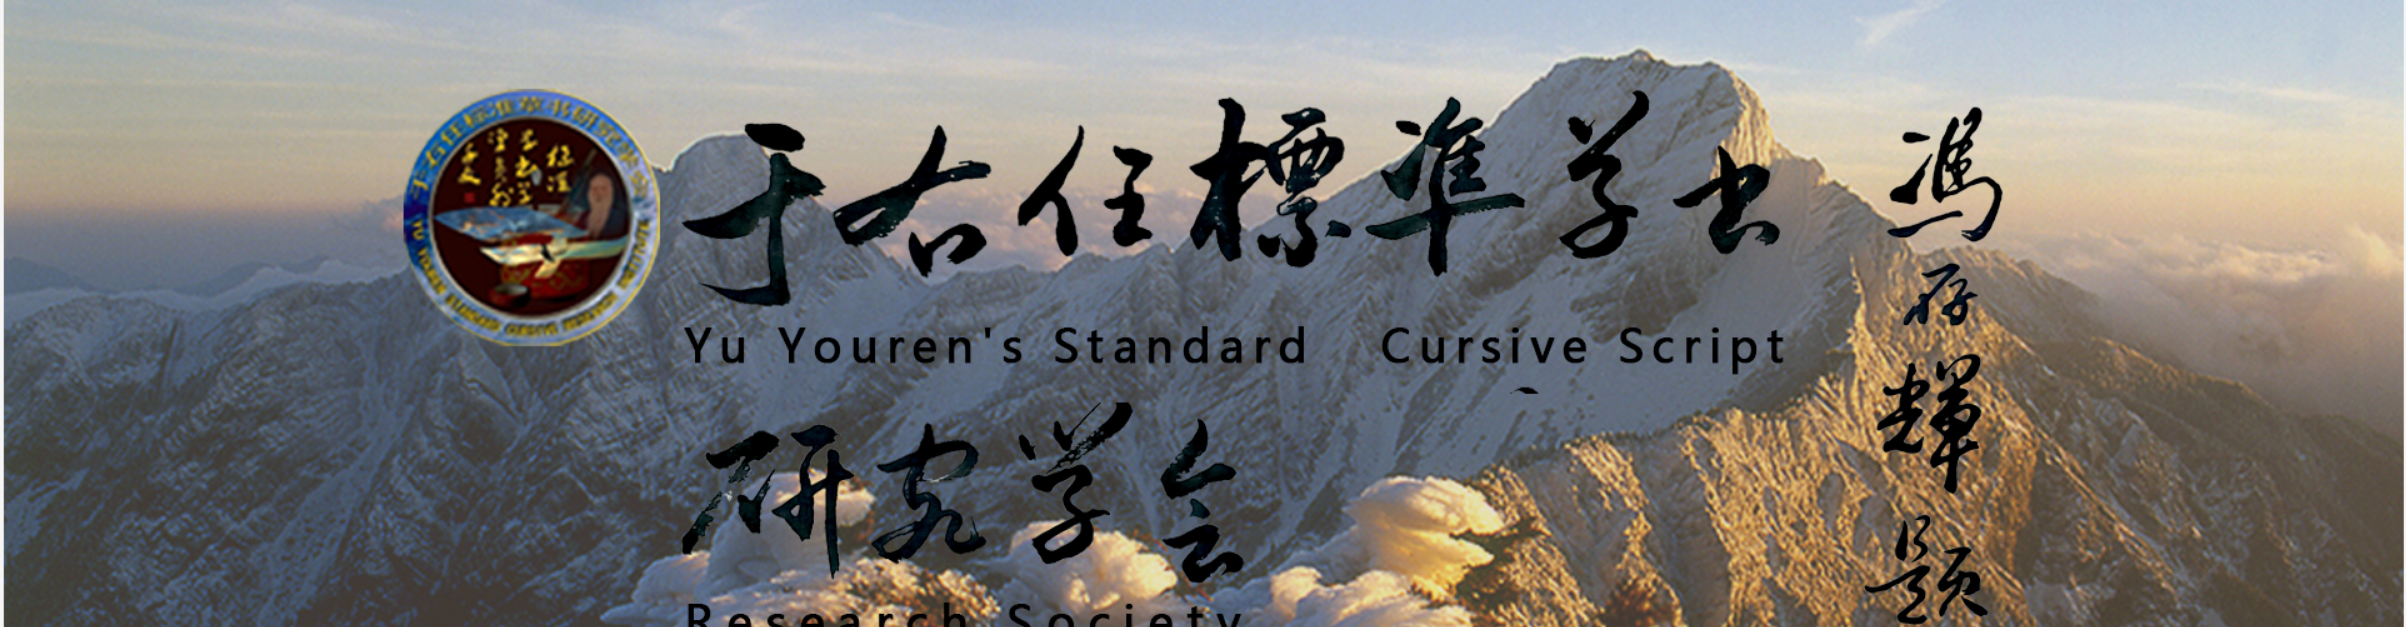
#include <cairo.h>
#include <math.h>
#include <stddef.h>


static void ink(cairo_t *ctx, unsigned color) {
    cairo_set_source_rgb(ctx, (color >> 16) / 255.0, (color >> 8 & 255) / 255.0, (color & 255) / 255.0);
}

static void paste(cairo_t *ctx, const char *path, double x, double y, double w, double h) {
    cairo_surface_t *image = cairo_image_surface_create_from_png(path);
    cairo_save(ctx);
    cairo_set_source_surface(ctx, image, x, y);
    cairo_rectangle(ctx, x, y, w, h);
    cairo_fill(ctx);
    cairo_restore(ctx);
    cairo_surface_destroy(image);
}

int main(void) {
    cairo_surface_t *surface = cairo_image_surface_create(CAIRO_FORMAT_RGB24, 2406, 627);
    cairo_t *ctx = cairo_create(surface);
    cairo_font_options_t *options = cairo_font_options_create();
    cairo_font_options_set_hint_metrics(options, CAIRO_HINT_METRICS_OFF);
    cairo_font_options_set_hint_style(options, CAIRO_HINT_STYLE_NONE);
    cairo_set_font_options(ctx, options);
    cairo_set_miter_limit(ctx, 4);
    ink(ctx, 0xF5F5F5);
    cairo_paint(ctx);
    paste(ctx, "media/1.png", 3, 0, 2401, 627);
    paste(ctx, "media/2.png", 403, 99, 1601, 528);
    cairo_surface_write_to_png(surface, "image.png");
    cairo_font_options_destroy(options);
    cairo_destroy(ctx);
    cairo_surface_destroy(surface);
    return 0;
}
